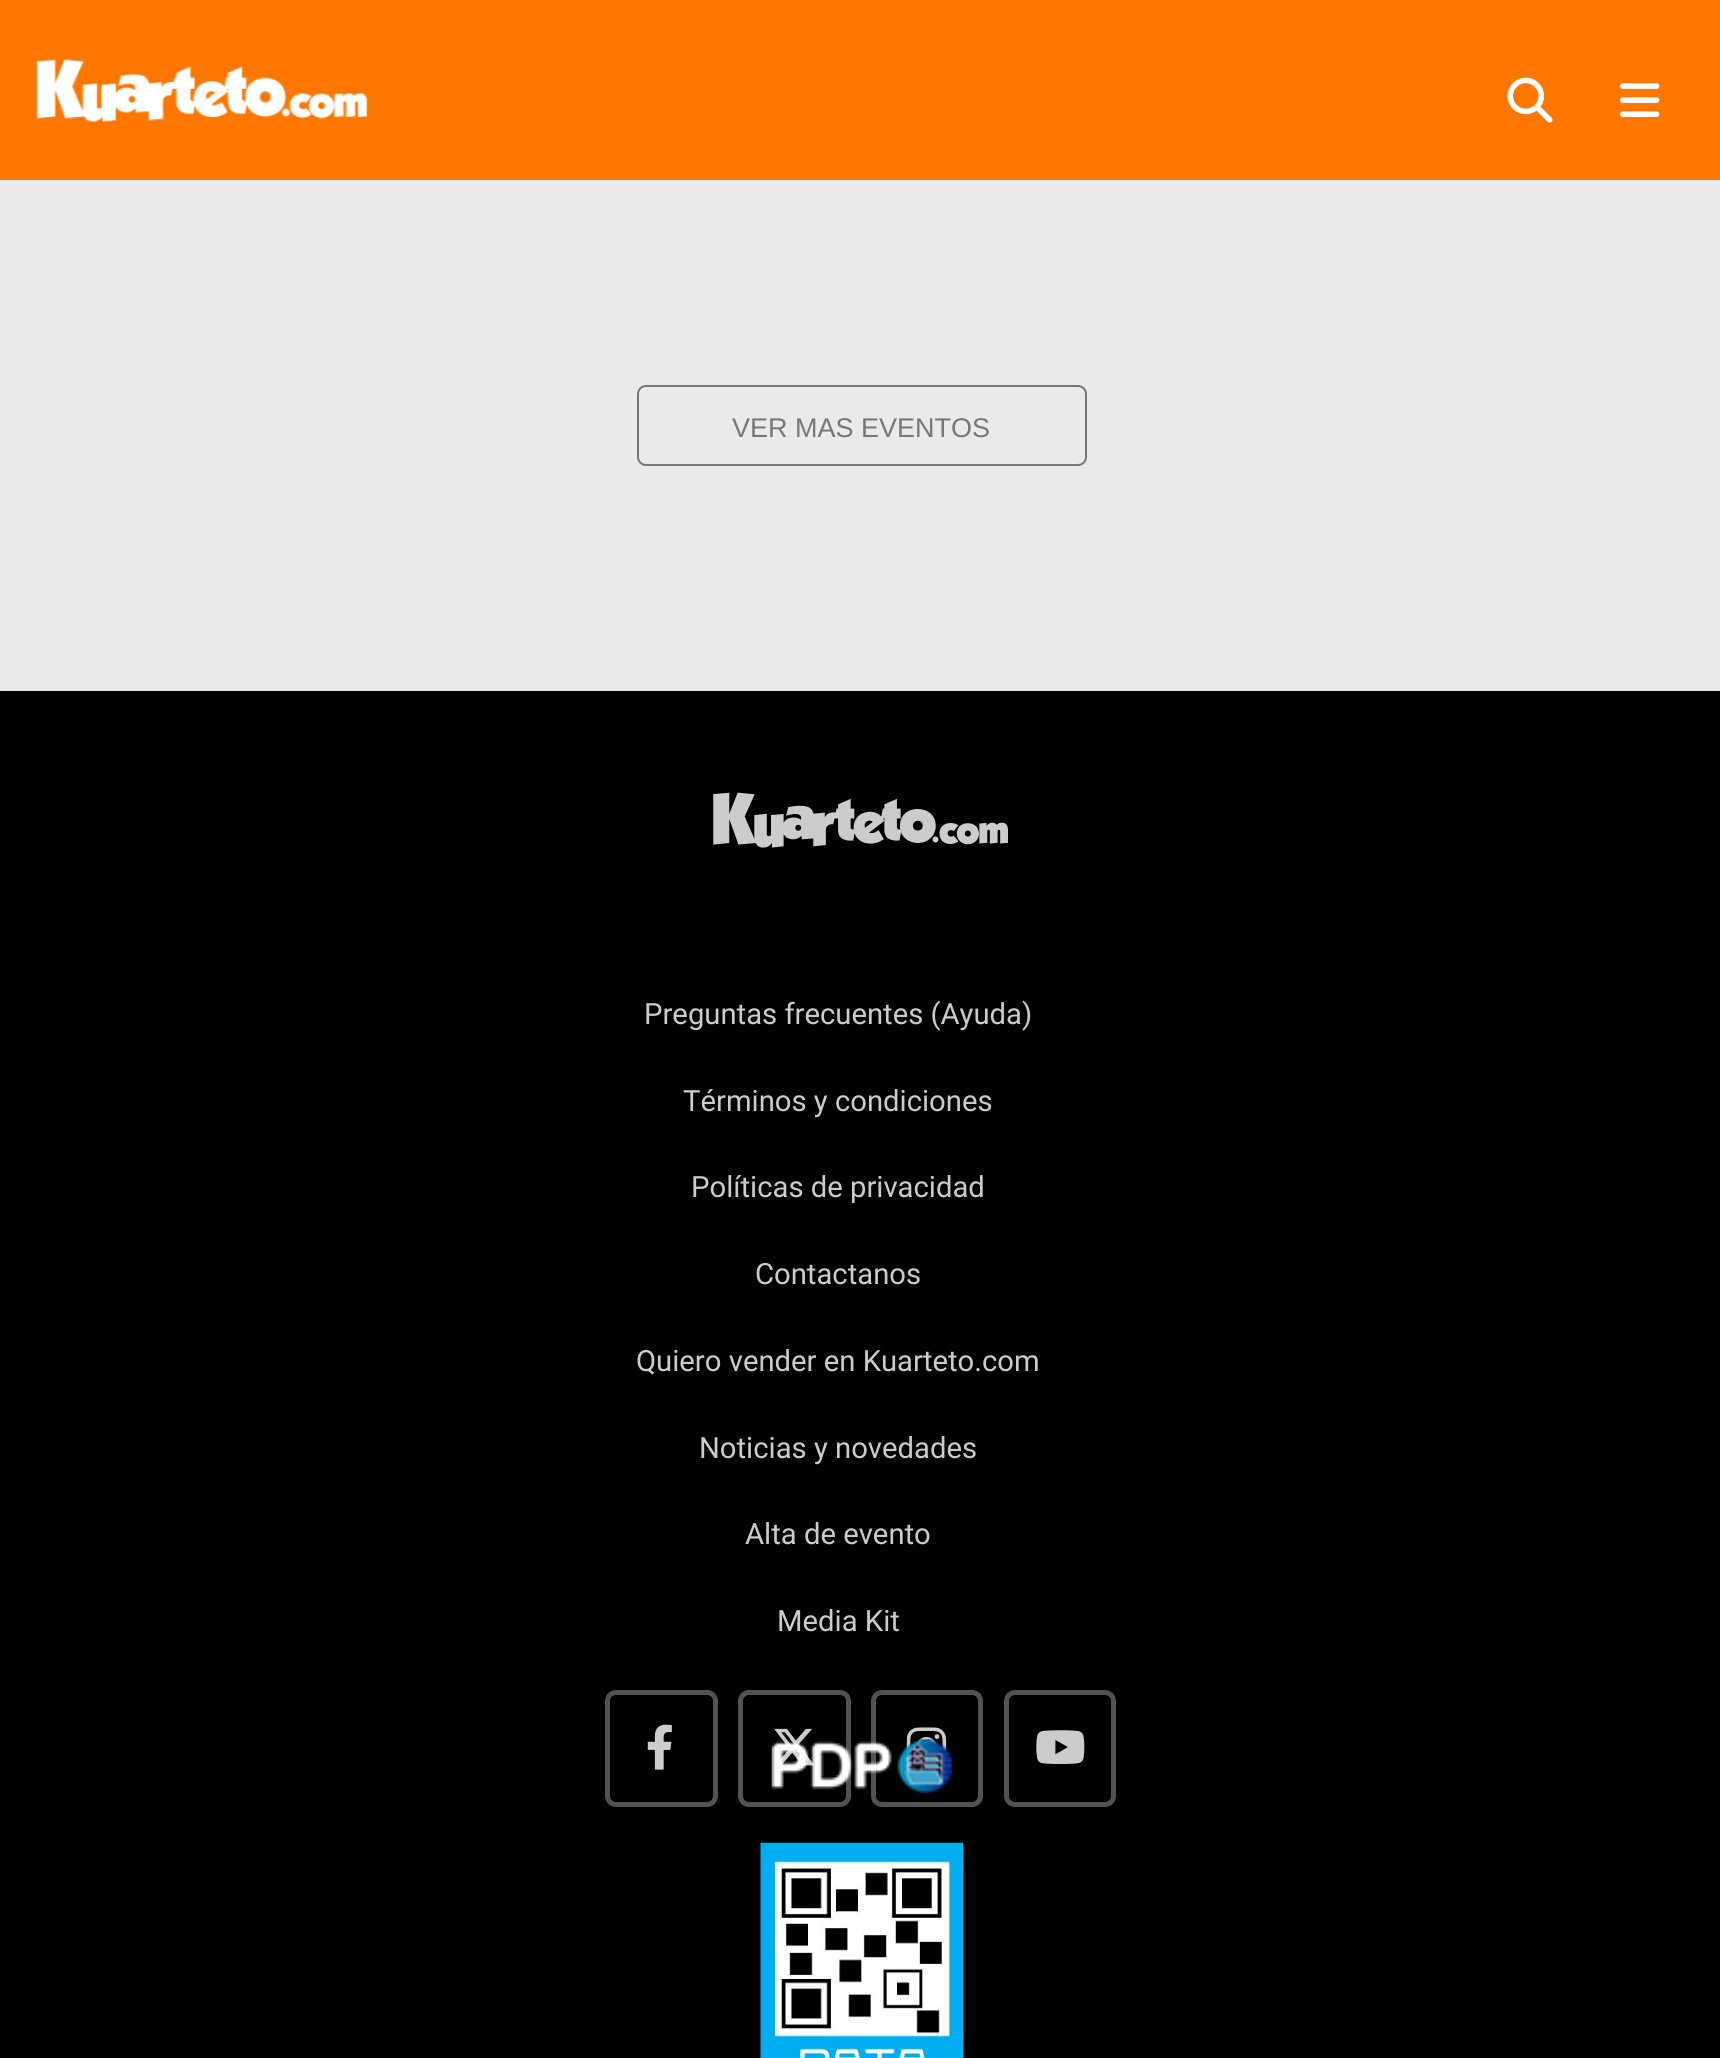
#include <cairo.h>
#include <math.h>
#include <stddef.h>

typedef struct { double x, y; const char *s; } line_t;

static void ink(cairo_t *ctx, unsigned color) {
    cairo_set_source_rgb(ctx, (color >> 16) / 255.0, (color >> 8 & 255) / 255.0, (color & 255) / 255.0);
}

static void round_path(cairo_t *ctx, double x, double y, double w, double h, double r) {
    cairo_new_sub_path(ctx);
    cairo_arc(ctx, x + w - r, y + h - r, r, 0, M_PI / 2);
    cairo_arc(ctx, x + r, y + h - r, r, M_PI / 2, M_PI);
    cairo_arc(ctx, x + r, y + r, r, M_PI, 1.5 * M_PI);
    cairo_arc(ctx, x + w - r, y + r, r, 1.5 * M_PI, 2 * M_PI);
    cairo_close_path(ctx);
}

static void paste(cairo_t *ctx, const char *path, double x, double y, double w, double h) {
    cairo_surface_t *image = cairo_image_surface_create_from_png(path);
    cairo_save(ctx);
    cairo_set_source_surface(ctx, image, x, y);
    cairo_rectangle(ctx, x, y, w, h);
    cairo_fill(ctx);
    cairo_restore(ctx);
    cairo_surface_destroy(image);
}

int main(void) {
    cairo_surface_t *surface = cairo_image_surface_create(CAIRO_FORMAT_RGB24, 1720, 2058);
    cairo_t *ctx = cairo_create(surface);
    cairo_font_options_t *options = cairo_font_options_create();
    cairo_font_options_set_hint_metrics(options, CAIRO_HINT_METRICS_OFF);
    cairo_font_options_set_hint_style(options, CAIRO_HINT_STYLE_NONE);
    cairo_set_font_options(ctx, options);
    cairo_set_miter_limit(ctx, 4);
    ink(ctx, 0xEAEAEA);
    cairo_paint(ctx);
    ink(ctx, 0xFF7700);
    cairo_rectangle(ctx, 0, 0, 1720, 180);
    cairo_fill(ctx);
    paste(ctx, "media/1.png", 36, 59, 332, 63);
    paste(ctx, "media/2.png", 1507, 77, 46, 46);
    paste(ctx, "media/3.png", 1620, 83, 40, 34);
    round_path(ctx, 638, 386, 448, 79, 8);
    ink(ctx, 0x777777);
    cairo_stroke(ctx);
    cairo_select_font_face(ctx, "Liberation Sans", CAIRO_FONT_SLANT_NORMAL, CAIRO_FONT_WEIGHT_NORMAL);
    cairo_set_font_size(ctx, 27);
    cairo_move_to(ctx, 732, 437);
    cairo_show_text(ctx, "VER MAS EVENTOS");
    ink(ctx, 0x000000);
    cairo_rectangle(ctx, 0, 691, 1720, 1367);
    cairo_fill(ctx);
    paste(ctx, "media/4.png", 713, 792, 295, 56);
    cairo_select_font_face(ctx, "Roboto", CAIRO_FONT_SLANT_NORMAL, CAIRO_FONT_WEIGHT_NORMAL);
    cairo_set_font_size(ctx, 29.25);
    ink(ctx, 0xCCCCCC);
    {
        static const line_t items[] = {
            {644, 1024, "Preguntas frecuentes (Ayuda)"},
            {683, 1111, "Términos y condiciones"},
            {691, 1197, "Políticas de privacidad"},
            {755, 1284, "Contactanos"},
            {636, 1371, "Quiero vender en Kuarteto.com"},
            {699, 1458, "Noticias y novedades"},
            {745, 1544, "Alta de evento"},
            {777, 1631, "Media Kit"},
        };
        for (size_t i = 0; i < sizeof items / sizeof *items; i++) {
            cairo_move_to(ctx, items[i].x, items[i].y);
            cairo_show_text(ctx, items[i].s);
        }
    }
    round_path(ctx, 607.5, 1692.5, 108, 112, 8.5);
    ink(ctx, 0x525252);
    cairo_set_line_width(ctx, 5);
    cairo_stroke(ctx);
    paste(ctx, "media/5.png", 647, 1724, 25, 46);
    round_path(ctx, 740.5, 1692.5, 108, 112, 8.5);
    cairo_stroke(ctx);
    paste(ctx, "media/6.png", 774, 1728, 41, 38);
    round_path(ctx, 873.5, 1692.5, 107, 112, 8.5);
    cairo_stroke(ctx);
    paste(ctx, "media/7.png", 906, 1727, 41, 28);
    round_path(ctx, 1006.5, 1692.5, 107, 112, 8.5);
    cairo_stroke(ctx);
    paste(ctx, "media/8.png", 1036, 1730, 49, 34);
    paste(ctx, "media/9.png", 771, 1739, 181, 55);
    paste(ctx, "media/10.png", 760, 1842, 203, 216);
    cairo_surface_write_to_png(surface, "image.png");
    cairo_font_options_destroy(options);
    cairo_destroy(ctx);
    cairo_surface_destroy(surface);
    return 0;
}
